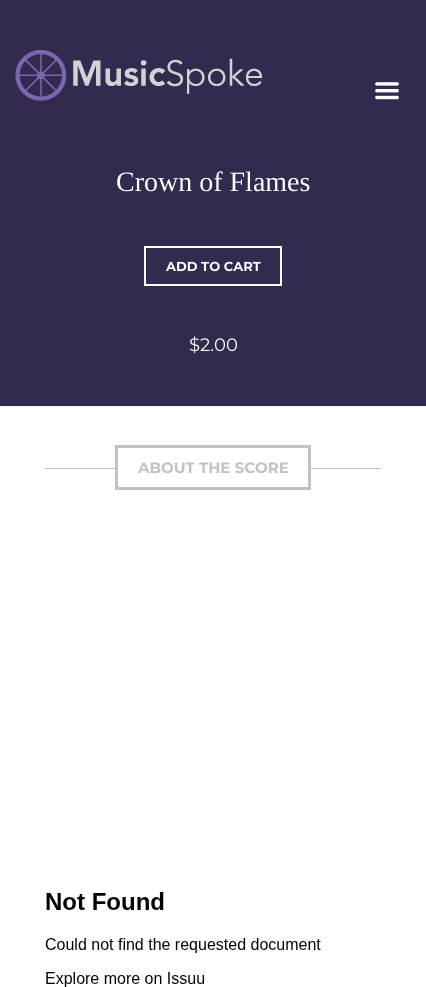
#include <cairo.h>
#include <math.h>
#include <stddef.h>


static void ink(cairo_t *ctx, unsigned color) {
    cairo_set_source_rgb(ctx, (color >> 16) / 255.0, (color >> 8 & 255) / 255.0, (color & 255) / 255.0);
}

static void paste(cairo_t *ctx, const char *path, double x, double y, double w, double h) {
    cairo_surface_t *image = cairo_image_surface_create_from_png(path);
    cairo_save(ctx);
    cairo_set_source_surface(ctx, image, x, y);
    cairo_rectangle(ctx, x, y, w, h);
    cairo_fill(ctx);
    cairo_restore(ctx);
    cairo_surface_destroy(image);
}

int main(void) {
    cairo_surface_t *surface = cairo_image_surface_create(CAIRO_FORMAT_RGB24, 426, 987);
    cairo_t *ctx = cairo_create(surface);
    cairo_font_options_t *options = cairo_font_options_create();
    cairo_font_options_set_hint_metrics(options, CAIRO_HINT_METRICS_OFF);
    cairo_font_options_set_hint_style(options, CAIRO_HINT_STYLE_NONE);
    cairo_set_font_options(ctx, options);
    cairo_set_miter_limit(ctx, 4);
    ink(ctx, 0xFFFFFF);
    cairo_paint(ctx);
    ink(ctx, 0x342A4F);
    cairo_rectangle(ctx, 0, 0, 426, 406);
    cairo_fill(ctx);
    paste(ctx, "media/1.png", 15, 50, 247, 51);
    paste(ctx, "media/2.png", 375, 82, 24, 18);
    ink(ctx, 0xEEEEEE);
    cairo_rectangle(ctx, 0, 406, 426, 1);
    cairo_fill(ctx);
    cairo_select_font_face(ctx, "Liberation Serif", CAIRO_FONT_SLANT_NORMAL, CAIRO_FONT_WEIGHT_NORMAL);
    cairo_set_font_size(ctx, 28);
    ink(ctx, 0xFFFFFF);
    cairo_move_to(ctx, 116, 191);
    cairo_show_text(ctx, "Crown of Flames");
    cairo_rectangle(ctx, 145, 247, 136, 38);
    cairo_stroke(ctx);
    cairo_select_font_face(ctx, "Montserrat", CAIRO_FONT_SLANT_NORMAL, CAIRO_FONT_WEIGHT_BOLD);
    cairo_set_font_size(ctx, 13);
    cairo_move_to(ctx, 166, 271);
    cairo_show_text(ctx, "ADD TO CART");
    cairo_select_font_face(ctx, "Montserrat", CAIRO_FONT_SLANT_NORMAL, CAIRO_FONT_WEIGHT_NORMAL);
    cairo_set_font_size(ctx, 18);
    cairo_move_to(ctx, 189, 351);
    cairo_show_text(ctx, "$2.00");
    ink(ctx, 0xBDC3C7);
    cairo_rectangle(ctx, 45, 468, 336, 1);
    cairo_fill(ctx);
    ink(ctx, 0xFFFFFF);
    cairo_rectangle(ctx, 118, 468, 190, 1);
    cairo_fill(ctx);
    cairo_rectangle(ctx, 116.5, 446.5, 193, 42);
    ink(ctx, 0xBDC3C7);
    cairo_set_line_width(ctx, 3);
    cairo_stroke(ctx);
    cairo_select_font_face(ctx, "Montserrat", CAIRO_FONT_SLANT_NORMAL, CAIRO_FONT_WEIGHT_BOLD);
    cairo_set_font_size(ctx, 15);
    cairo_move_to(ctx, 138, 473);
    cairo_show_text(ctx, "ABOUT THE SCORE");
    paste(ctx, "media/3.png", 45, 892, 276, 95);
    cairo_surface_write_to_png(surface, "image.png");
    cairo_font_options_destroy(options);
    cairo_destroy(ctx);
    cairo_surface_destroy(surface);
    return 0;
}
